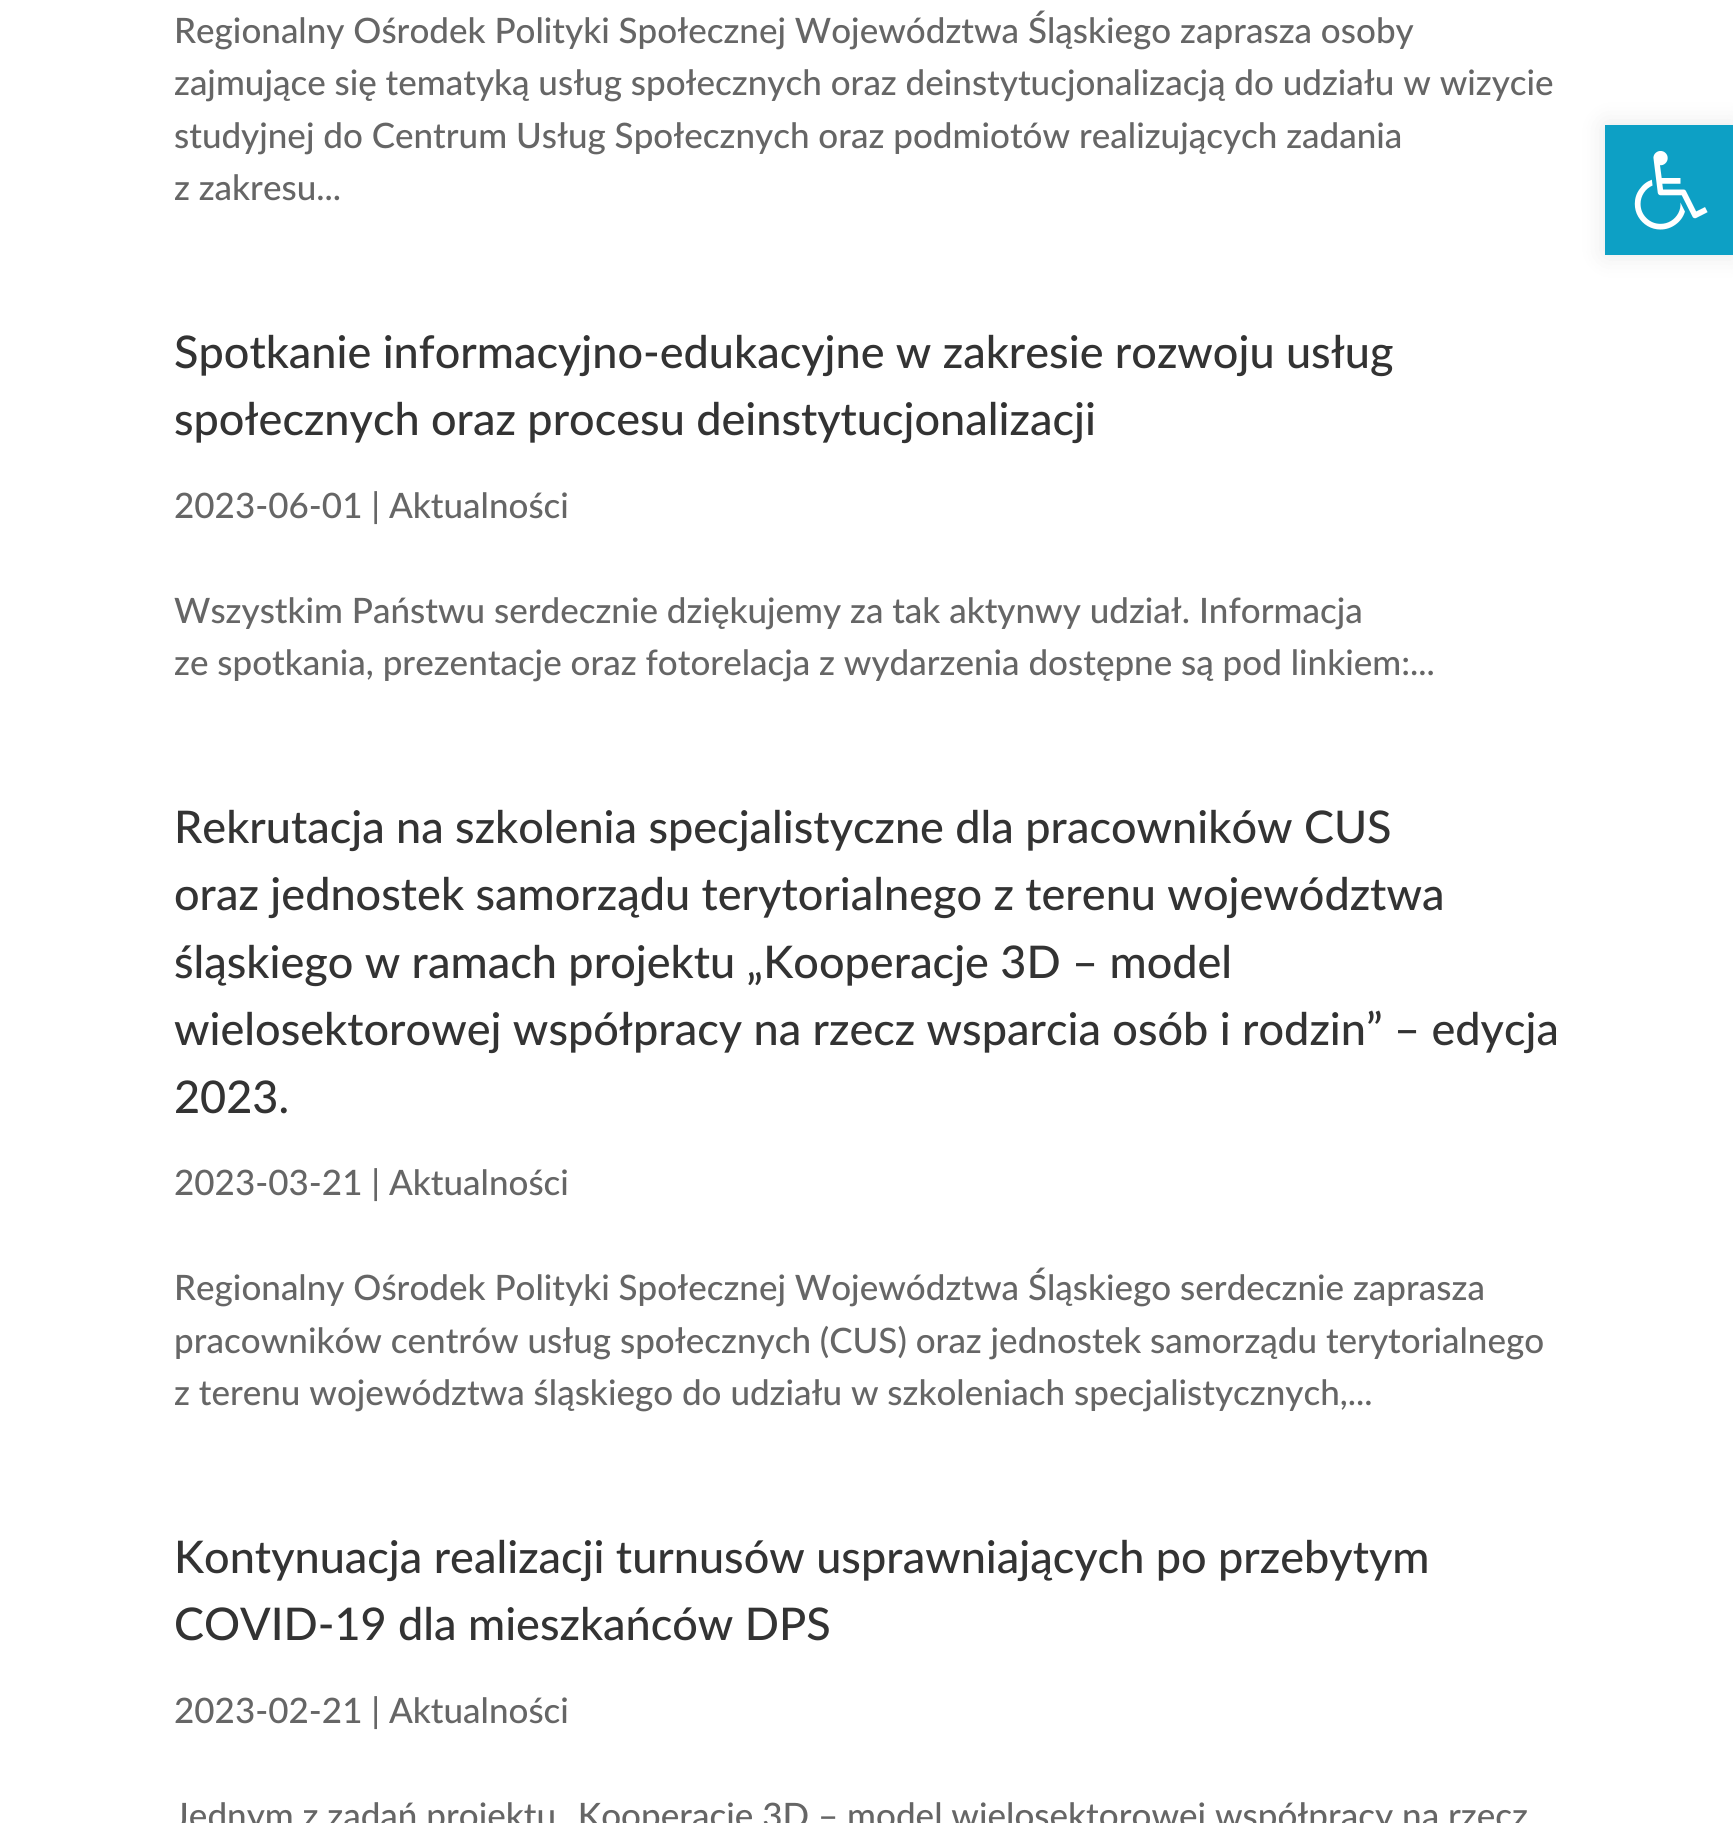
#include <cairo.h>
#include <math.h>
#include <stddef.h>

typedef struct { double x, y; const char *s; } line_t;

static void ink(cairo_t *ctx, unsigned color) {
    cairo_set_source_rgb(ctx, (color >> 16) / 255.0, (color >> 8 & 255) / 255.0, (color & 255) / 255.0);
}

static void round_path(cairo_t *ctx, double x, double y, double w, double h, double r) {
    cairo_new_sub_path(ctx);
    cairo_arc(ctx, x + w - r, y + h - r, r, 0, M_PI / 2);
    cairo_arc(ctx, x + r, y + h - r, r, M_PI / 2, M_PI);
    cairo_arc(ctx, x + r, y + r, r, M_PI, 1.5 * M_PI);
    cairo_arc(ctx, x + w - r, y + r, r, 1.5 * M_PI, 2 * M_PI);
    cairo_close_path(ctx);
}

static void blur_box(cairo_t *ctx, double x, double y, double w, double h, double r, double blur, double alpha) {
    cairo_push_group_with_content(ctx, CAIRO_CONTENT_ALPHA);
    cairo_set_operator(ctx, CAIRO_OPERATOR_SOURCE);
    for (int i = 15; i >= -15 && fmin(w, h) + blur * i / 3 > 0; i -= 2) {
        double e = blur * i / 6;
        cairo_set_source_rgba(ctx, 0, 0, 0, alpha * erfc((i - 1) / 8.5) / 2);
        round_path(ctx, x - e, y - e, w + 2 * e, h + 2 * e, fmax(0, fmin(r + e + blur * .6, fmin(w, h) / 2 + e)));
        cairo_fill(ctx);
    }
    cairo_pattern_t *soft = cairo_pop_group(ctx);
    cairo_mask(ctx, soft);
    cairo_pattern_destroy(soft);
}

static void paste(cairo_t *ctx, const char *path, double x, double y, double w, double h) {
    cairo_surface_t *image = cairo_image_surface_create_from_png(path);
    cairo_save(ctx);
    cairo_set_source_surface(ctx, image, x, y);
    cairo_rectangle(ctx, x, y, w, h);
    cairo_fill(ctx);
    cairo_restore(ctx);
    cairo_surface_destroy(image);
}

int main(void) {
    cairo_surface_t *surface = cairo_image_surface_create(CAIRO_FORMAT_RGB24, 1733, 1823);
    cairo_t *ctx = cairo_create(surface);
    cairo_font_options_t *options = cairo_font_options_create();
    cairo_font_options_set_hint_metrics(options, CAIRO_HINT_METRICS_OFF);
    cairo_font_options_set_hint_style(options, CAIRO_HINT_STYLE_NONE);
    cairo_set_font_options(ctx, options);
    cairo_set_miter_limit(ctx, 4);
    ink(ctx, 0xFFFFFF);
    cairo_paint(ctx);
    cairo_select_font_face(ctx, "Lato Medium", CAIRO_FONT_SLANT_NORMAL, CAIRO_FONT_WEIGHT_NORMAL);
    cairo_set_font_size(ctx, 35);
    ink(ctx, 0x666666);
    {
        static const line_t items[] = {
            {174, 43, "Regionalny Ośrodek Polityki Społecznej Województwa Śląskiego zaprasza osoby"},
            {174, 95, "zajmujące się tematyką usług społecznych oraz deinstytucjonalizacją do udziału w wizycie"},
            {174, 148, "studyjnej do Centrum Usług Społecznych oraz podmiotów realizujących zadania"},
            {174, 200, "z zakresu..."},
        };
        for (size_t i = 0; i < sizeof items / sizeof *items; i++) {
            cairo_move_to(ctx, items[i].x, items[i].y);
            cairo_show_text(ctx, items[i].s);
        }
    }
    cairo_set_font_size(ctx, 45);
    ink(ctx, 0x333333);
    cairo_move_to(ctx, 174, 368);
    cairo_show_text(ctx, "Spotkanie informacyjno-edukacyjne w zakresie rozwoju usług");
    cairo_move_to(ctx, 174, 435);
    cairo_show_text(ctx, "społecznych oraz procesu deinstytucjonalizacji");
    cairo_set_font_size(ctx, 35);
    ink(ctx, 0x666666);
    {
        static const line_t items[] = {
            {174, 518, "2023-06-01 | Aktualności"},
            {174, 623, "Wszystkim Państwu serdecznie dziękujemy za tak aktynwy udział. Informacja"},
            {174, 675, "ze spotkania, prezentacje oraz fotorelacja z wydarzenia dostępne są pod linkiem:..."},
        };
        for (size_t i = 0; i < sizeof items / sizeof *items; i++) {
            cairo_move_to(ctx, items[i].x, items[i].y);
            cairo_show_text(ctx, items[i].s);
        }
    }
    cairo_set_font_size(ctx, 45);
    ink(ctx, 0x333333);
    {
        static const line_t items[] = {
            {174, 843, "Rekrutacja na szkolenia specjalistyczne dla pracowników CUS"},
            {174, 910, "oraz jednostek samorządu terytorialnego z terenu województwa"},
            {174, 978, "śląskiego w ramach projektu „Kooperacje 3D – model"},
            {174, 1045, "wielosektorowej współpracy na rzecz wsparcia osób i rodzin” – edycja"},
            {174, 1113, "2023."},
        };
        for (size_t i = 0; i < sizeof items / sizeof *items; i++) {
            cairo_move_to(ctx, items[i].x, items[i].y);
            cairo_show_text(ctx, items[i].s);
        }
    }
    cairo_set_font_size(ctx, 35);
    ink(ctx, 0x666666);
    {
        static const line_t items[] = {
            {174, 1195, "2023-03-21 | Aktualności"},
            {174, 1300, "Regionalny Ośrodek Polityki Społecznej Województwa Śląskiego serdecznie zaprasza"},
            {174, 1353, "pracowników centrów usług społecznych (CUS) oraz jednostek samorządu terytorialnego"},
            {174, 1405, "z terenu województwa śląskiego do udziału w szkoleniach specjalistycznych,..."},
        };
        for (size_t i = 0; i < sizeof items / sizeof *items; i++) {
            cairo_move_to(ctx, items[i].x, items[i].y);
            cairo_show_text(ctx, items[i].s);
        }
    }
    cairo_set_font_size(ctx, 45);
    ink(ctx, 0x333333);
    cairo_move_to(ctx, 174, 1573);
    cairo_show_text(ctx, "Kontynuacja realizacji turnusów usprawniających po przebytym");
    cairo_move_to(ctx, 174, 1640);
    cairo_show_text(ctx, "COVID-19 dla mieszkańców DPS");
    cairo_set_font_size(ctx, 35);
    ink(ctx, 0x666666);
    cairo_move_to(ctx, 174, 1723);
    cairo_show_text(ctx, "2023-02-21 | Aktualności");
    cairo_move_to(ctx, 174, 1828);
    cairo_show_text(ctx, "Jednym z zadań projektu „Kooperacje 3D – model wielosektorowej współpracy na rzecz");
    ink(ctx, 0x000000);
    blur_box(ctx, 1605, 125, 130, 130, 0, 12.5, 0.1);
    ink(ctx, 0x0DA0C5);
    cairo_rectangle(ctx, 1605, 125, 128, 130);
    cairo_fill(ctx);
    paste(ctx, "media/1.png", 1634, 151, 74, 79);
    cairo_surface_write_to_png(surface, "image.png");
    cairo_font_options_destroy(options);
    cairo_destroy(ctx);
    cairo_surface_destroy(surface);
    return 0;
}
